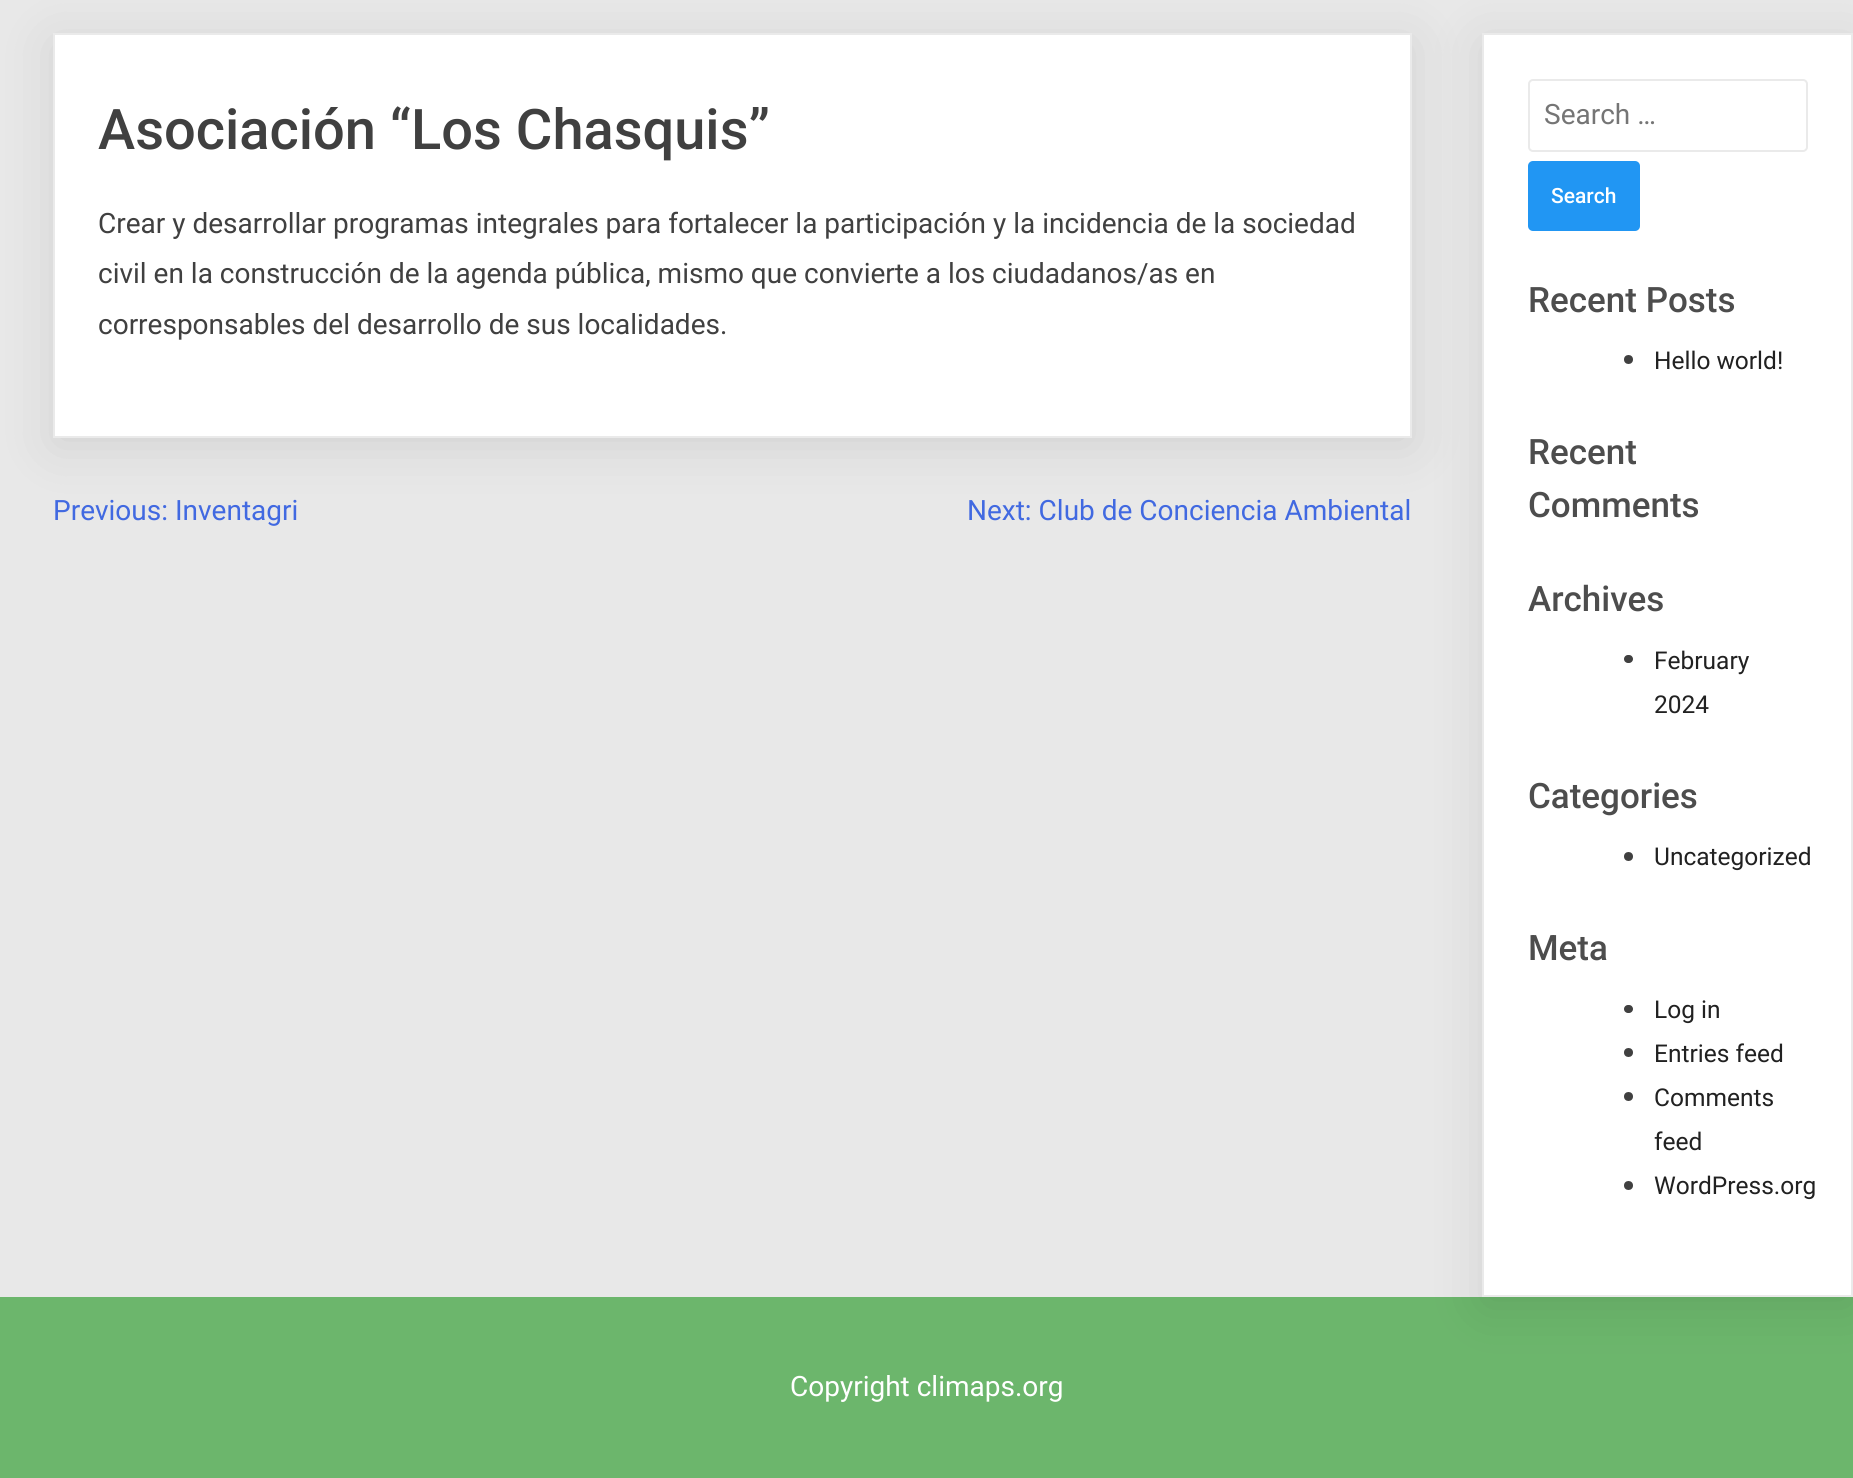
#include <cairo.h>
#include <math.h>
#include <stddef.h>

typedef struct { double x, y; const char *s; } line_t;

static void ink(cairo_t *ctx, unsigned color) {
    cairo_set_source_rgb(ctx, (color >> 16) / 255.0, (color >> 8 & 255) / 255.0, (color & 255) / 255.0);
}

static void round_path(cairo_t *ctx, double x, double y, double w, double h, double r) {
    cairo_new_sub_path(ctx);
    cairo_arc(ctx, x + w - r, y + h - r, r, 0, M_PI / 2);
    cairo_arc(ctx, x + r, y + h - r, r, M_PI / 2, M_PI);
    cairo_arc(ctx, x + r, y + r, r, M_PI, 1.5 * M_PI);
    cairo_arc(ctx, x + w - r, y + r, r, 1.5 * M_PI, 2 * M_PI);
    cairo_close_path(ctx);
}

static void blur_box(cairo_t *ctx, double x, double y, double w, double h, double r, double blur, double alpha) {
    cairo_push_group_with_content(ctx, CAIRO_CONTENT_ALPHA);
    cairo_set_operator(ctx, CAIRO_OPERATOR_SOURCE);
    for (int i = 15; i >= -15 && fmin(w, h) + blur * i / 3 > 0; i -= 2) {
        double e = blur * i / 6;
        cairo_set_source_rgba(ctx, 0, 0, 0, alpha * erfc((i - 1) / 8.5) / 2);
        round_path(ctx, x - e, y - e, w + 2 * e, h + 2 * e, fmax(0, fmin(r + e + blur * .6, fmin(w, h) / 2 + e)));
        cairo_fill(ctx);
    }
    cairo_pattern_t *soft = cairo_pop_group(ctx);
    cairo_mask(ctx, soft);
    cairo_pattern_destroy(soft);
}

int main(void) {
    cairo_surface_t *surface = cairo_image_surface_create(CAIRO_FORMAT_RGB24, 1853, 1478);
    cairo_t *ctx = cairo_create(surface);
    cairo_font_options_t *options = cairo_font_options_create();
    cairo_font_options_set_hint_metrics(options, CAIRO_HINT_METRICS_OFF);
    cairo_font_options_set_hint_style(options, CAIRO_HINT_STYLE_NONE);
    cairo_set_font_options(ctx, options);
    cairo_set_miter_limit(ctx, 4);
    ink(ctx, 0xE8E8E8);
    cairo_paint(ctx);
    ink(ctx, 0x000000);
    blur_box(ctx, 53, 42, 1359, 404, 0, 26, 0.1);
    ink(ctx, 0xFFFFFF);
    cairo_rectangle(ctx, 54, 34, 1357, 403);
    cairo_fill_preserve(ctx);
    ink(ctx, 0xEAEAEA);
    cairo_stroke(ctx);
    cairo_select_font_face(ctx, "Roboto Medium", CAIRO_FONT_SLANT_NORMAL, CAIRO_FONT_WEIGHT_NORMAL);
    cairo_set_font_size(ctx, 56);
    ink(ctx, 0x404040);
    cairo_move_to(ctx, 98, 149);
    cairo_show_text(ctx, "Asociación “Los Chasquis”");
    cairo_select_font_face(ctx, "Roboto", CAIRO_FONT_SLANT_NORMAL, CAIRO_FONT_WEIGHT_NORMAL);
    cairo_set_font_size(ctx, 28);
    {
        static const line_t items[] = {
            {98, 233, "Crear y desarrollar programas integrales para fortalecer la participación y la incidencia de la sociedad"},
            {98, 283, "civil en la construcción de la agenda pública, mismo que convierte a los ciudadanos/as en"},
            {98, 334, "corresponsables del desarrollo de sus localidades."},
        };
        for (size_t i = 0; i < sizeof items / sizeof *items; i++) {
            cairo_move_to(ctx, items[i].x, items[i].y);
            cairo_show_text(ctx, items[i].s);
        }
    }
    ink(ctx, 0x4169E1);
    cairo_move_to(ctx, 53, 520);
    cairo_show_text(ctx, "Previous: Inventagri");
    cairo_move_to(ctx, 967, 520);
    cairo_show_text(ctx, "Next: Club de Conciencia Ambiental");
    ink(ctx, 0x6CB66C);
    cairo_rectangle(ctx, 0, 1297, 1853, 181);
    cairo_fill(ctx);
    ink(ctx, 0x000000);
    blur_box(ctx, 1482, 42, 371, 1264, 0, 26, 0.1);
    ink(ctx, 0xFFFFFF);
    cairo_rectangle(ctx, 1483, 34, 369, 1262);
    cairo_fill_preserve(ctx);
    ink(ctx, 0xEAEAEA);
    cairo_stroke(ctx);
    round_path(ctx, 1529, 80, 278, 71, 4);
    cairo_stroke(ctx);
    ink(ctx, 0x757575);
    cairo_move_to(ctx, 1544, 124);
    cairo_show_text(ctx, "Search …");
    ink(ctx, 0x2196F3);
    round_path(ctx, 1528, 161, 112, 70, 5);
    cairo_fill(ctx);
    cairo_select_font_face(ctx, "Roboto Medium", CAIRO_FONT_SLANT_NORMAL, CAIRO_FONT_WEIGHT_NORMAL);
    cairo_set_font_size(ctx, 21);
    ink(ctx, 0xFFFFFF);
    cairo_move_to(ctx, 1551, 203);
    cairo_show_text(ctx, "Search");
    cairo_set_font_size(ctx, 35);
    ink(ctx, 0x4D4D4D);
    cairo_move_to(ctx, 1528, 312);
    cairo_show_text(ctx, "Recent Posts");
    ink(ctx, 0x404040);
    cairo_new_path(ctx);
    cairo_arc(ctx, 1628.5, 359.5, 4.5, 0, 2 * M_PI);
    cairo_fill(ctx);
    cairo_select_font_face(ctx, "Roboto", CAIRO_FONT_SLANT_NORMAL, CAIRO_FONT_WEIGHT_NORMAL);
    cairo_set_font_size(ctx, 24.5);
    ink(ctx, 0x212121);
    cairo_move_to(ctx, 1654, 369);
    cairo_show_text(ctx, "Hello world!");
    cairo_select_font_face(ctx, "Roboto Medium", CAIRO_FONT_SLANT_NORMAL, CAIRO_FONT_WEIGHT_NORMAL);
    cairo_set_font_size(ctx, 35);
    ink(ctx, 0x4D4D4D);
    {
        static const line_t items[] = {
            {1528, 464, "Recent"},
            {1528, 517, "Comments"},
            {1528, 611, "Archives"},
        };
        for (size_t i = 0; i < sizeof items / sizeof *items; i++) {
            cairo_move_to(ctx, items[i].x, items[i].y);
            cairo_show_text(ctx, items[i].s);
        }
    }
    ink(ctx, 0x404040);
    round_path(ctx, 1624, 655, 9, 8, 4);
    cairo_fill(ctx);
    cairo_select_font_face(ctx, "Roboto", CAIRO_FONT_SLANT_NORMAL, CAIRO_FONT_WEIGHT_NORMAL);
    cairo_set_font_size(ctx, 24.5);
    ink(ctx, 0x212121);
    cairo_move_to(ctx, 1654, 669);
    cairo_show_text(ctx, "February");
    cairo_move_to(ctx, 1654, 713);
    cairo_show_text(ctx, "2024");
    cairo_select_font_face(ctx, "Roboto Medium", CAIRO_FONT_SLANT_NORMAL, CAIRO_FONT_WEIGHT_NORMAL);
    cairo_set_font_size(ctx, 35);
    ink(ctx, 0x4D4D4D);
    cairo_move_to(ctx, 1528, 808);
    cairo_show_text(ctx, "Categories");
    ink(ctx, 0x404040);
    cairo_new_path(ctx);
    cairo_arc(ctx, 1628.5, 856.5, 4.5, 0, 2 * M_PI);
    cairo_fill(ctx);
    cairo_select_font_face(ctx, "Roboto", CAIRO_FONT_SLANT_NORMAL, CAIRO_FONT_WEIGHT_NORMAL);
    cairo_set_font_size(ctx, 24.5);
    ink(ctx, 0x212121);
    cairo_move_to(ctx, 1654, 865);
    cairo_show_text(ctx, "Uncategorized");
    cairo_select_font_face(ctx, "Roboto Medium", CAIRO_FONT_SLANT_NORMAL, CAIRO_FONT_WEIGHT_NORMAL);
    cairo_set_font_size(ctx, 35);
    ink(ctx, 0x4D4D4D);
    cairo_move_to(ctx, 1528, 960);
    cairo_show_text(ctx, "Meta");
    ink(ctx, 0x404040);
    round_path(ctx, 1624, 1005, 9, 8, 4);
    cairo_fill(ctx);
    cairo_select_font_face(ctx, "Roboto", CAIRO_FONT_SLANT_NORMAL, CAIRO_FONT_WEIGHT_NORMAL);
    cairo_set_font_size(ctx, 24.5);
    ink(ctx, 0x212121);
    cairo_move_to(ctx, 1654, 1018);
    cairo_show_text(ctx, "Log in");
    ink(ctx, 0x404040);
    cairo_new_path(ctx);
    cairo_arc(ctx, 1628.5, 1052.5, 4.5, 0, 2 * M_PI);
    cairo_fill(ctx);
    ink(ctx, 0x212121);
    cairo_move_to(ctx, 1654, 1062);
    cairo_show_text(ctx, "Entries feed");
    ink(ctx, 0x404040);
    cairo_new_path(ctx);
    cairo_arc(ctx, 1628.5, 1096.5, 4.5, 0, 2 * M_PI);
    cairo_fill(ctx);
    ink(ctx, 0x212121);
    cairo_move_to(ctx, 1654, 1106);
    cairo_show_text(ctx, "Comments");
    cairo_move_to(ctx, 1654, 1150);
    cairo_show_text(ctx, "feed");
    ink(ctx, 0x404040);
    cairo_new_path(ctx);
    cairo_arc(ctx, 1628.5, 1185.5, 4.5, 0, 2 * M_PI);
    cairo_fill(ctx);
    ink(ctx, 0x212121);
    cairo_move_to(ctx, 1654, 1194);
    cairo_show_text(ctx, "WordPress.org");
    cairo_set_font_size(ctx, 28);
    ink(ctx, 0xFFFFFF);
    cairo_move_to(ctx, 790, 1396);
    cairo_show_text(ctx, "Copyright climaps.org");
    cairo_surface_write_to_png(surface, "image.png");
    cairo_font_options_destroy(options);
    cairo_destroy(ctx);
    cairo_surface_destroy(surface);
    return 0;
}
